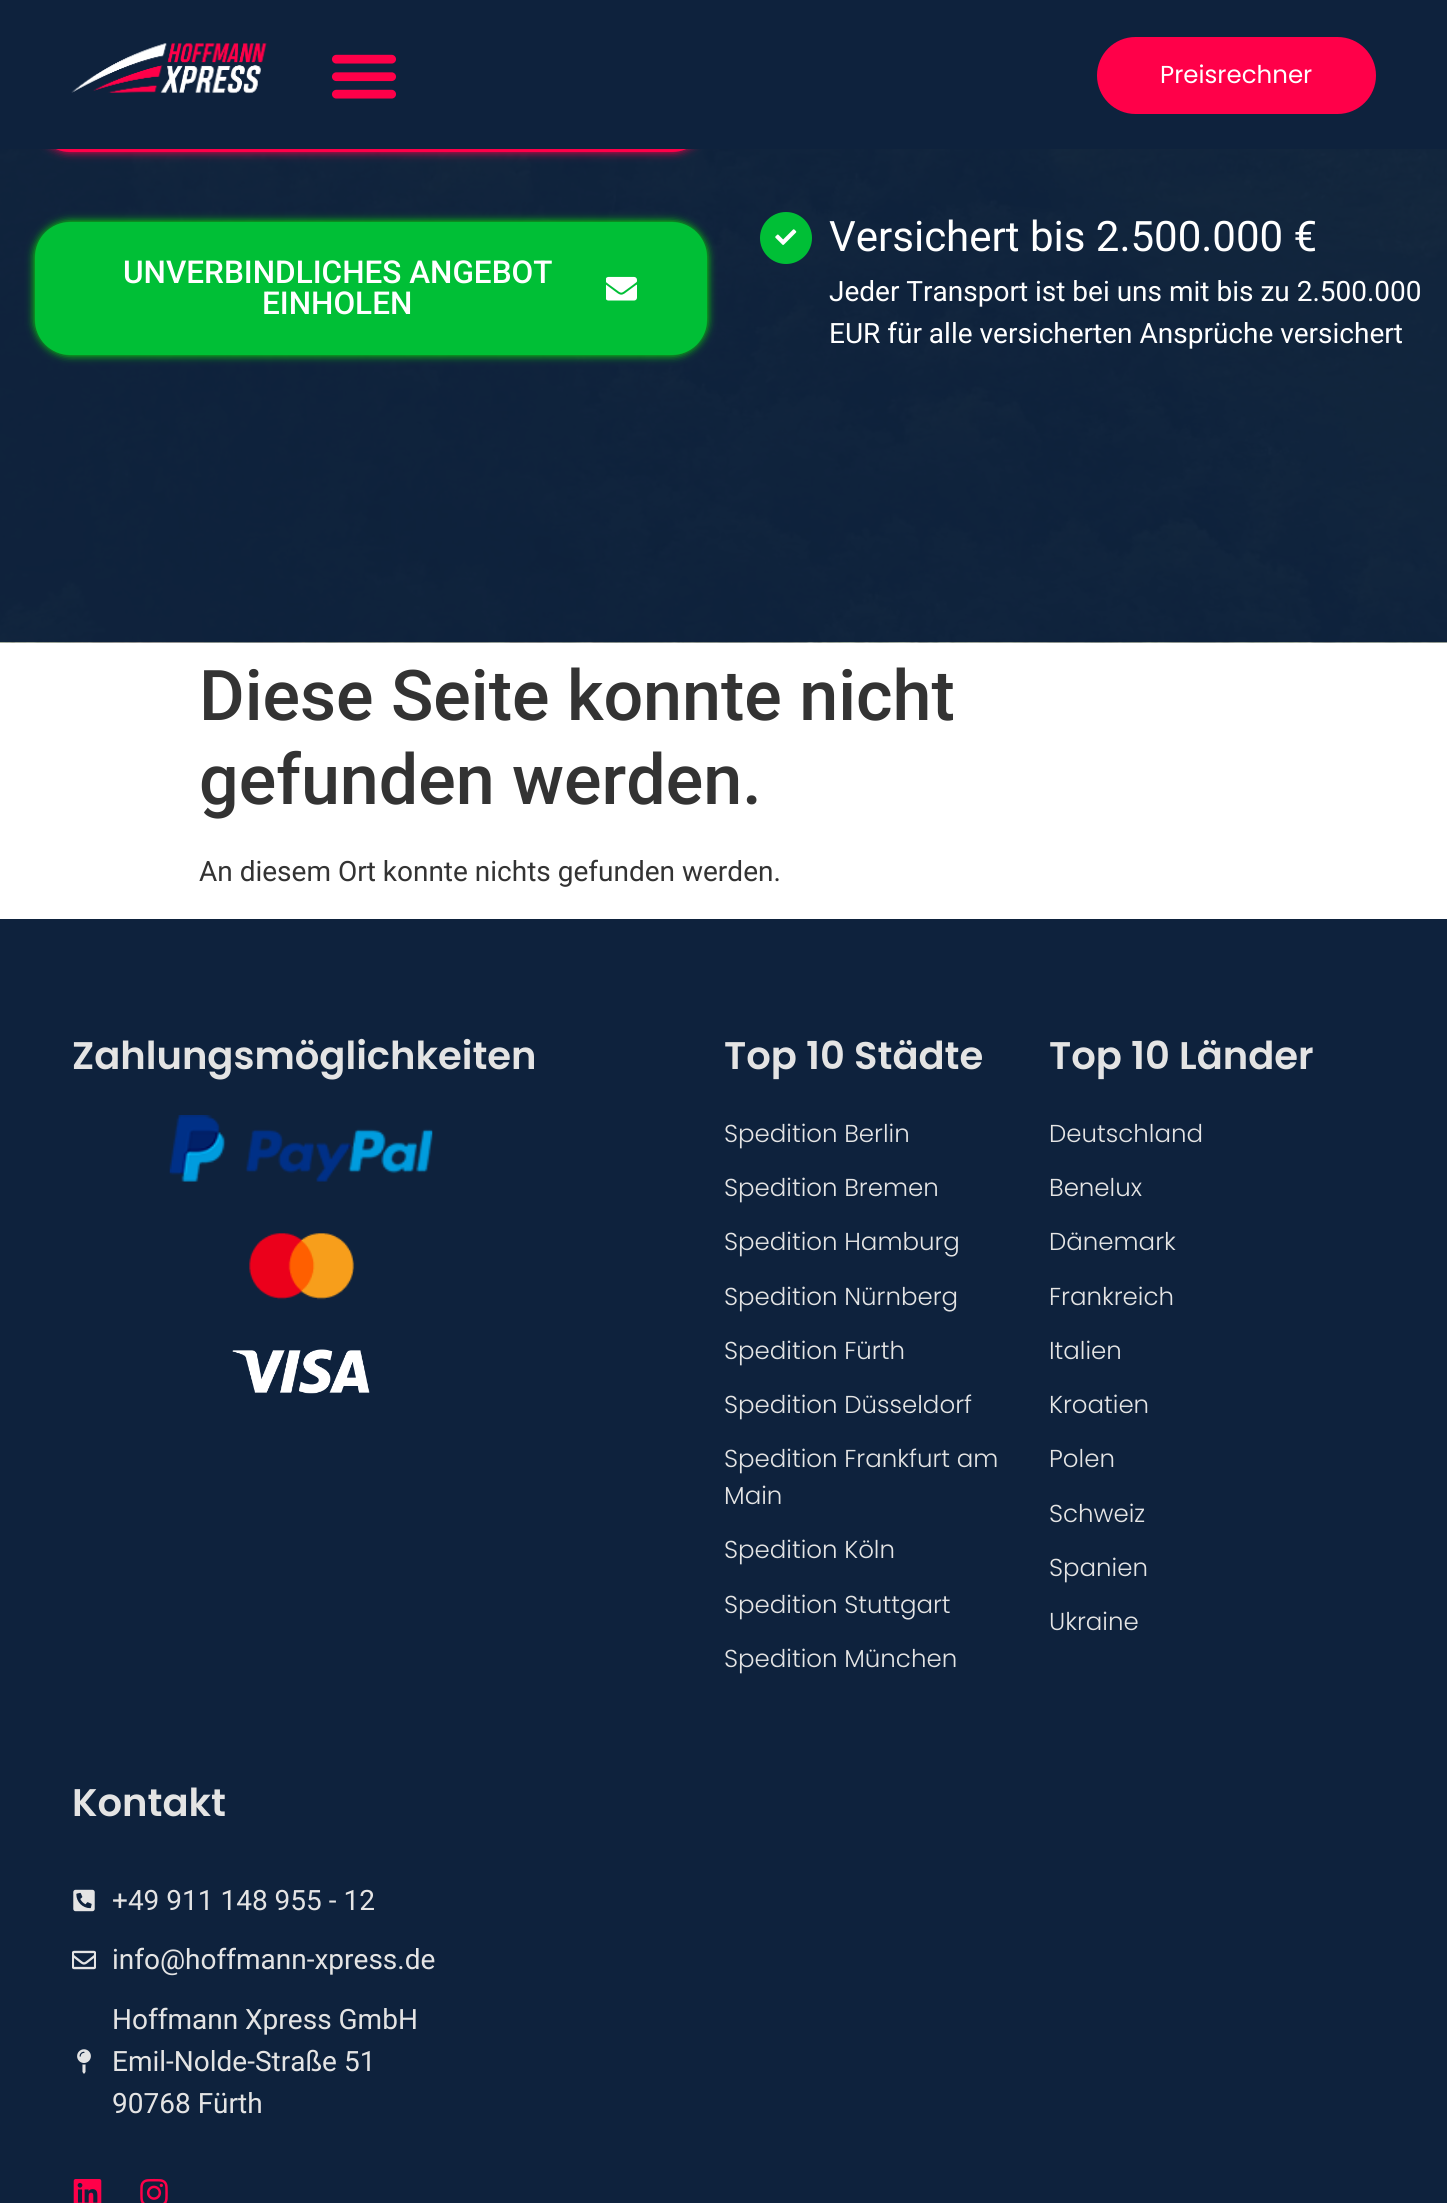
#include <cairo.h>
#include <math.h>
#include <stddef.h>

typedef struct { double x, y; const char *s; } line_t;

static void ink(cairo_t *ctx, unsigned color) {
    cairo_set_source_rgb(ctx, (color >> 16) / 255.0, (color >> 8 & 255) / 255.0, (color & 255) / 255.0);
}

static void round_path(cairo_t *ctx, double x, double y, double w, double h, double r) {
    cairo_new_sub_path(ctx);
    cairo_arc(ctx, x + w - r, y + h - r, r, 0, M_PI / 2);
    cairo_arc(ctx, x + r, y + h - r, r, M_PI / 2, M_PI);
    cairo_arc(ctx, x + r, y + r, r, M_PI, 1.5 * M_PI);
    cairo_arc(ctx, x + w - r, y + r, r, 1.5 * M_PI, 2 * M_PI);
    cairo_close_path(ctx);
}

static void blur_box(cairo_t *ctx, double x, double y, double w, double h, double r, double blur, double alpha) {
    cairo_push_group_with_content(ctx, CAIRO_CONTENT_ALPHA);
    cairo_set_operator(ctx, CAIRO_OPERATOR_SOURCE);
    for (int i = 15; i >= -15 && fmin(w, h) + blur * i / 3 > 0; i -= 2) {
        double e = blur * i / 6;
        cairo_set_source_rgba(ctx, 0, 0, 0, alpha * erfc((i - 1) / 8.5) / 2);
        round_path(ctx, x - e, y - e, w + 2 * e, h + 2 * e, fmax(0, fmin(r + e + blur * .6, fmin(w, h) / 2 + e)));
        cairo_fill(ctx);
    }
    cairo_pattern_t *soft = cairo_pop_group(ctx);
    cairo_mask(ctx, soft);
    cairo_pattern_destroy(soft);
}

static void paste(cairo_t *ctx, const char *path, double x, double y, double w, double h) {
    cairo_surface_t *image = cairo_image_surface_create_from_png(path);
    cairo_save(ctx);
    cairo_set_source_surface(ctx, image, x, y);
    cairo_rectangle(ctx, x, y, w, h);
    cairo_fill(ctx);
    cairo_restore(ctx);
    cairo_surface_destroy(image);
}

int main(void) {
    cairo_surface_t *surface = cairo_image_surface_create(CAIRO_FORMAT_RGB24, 1447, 2203);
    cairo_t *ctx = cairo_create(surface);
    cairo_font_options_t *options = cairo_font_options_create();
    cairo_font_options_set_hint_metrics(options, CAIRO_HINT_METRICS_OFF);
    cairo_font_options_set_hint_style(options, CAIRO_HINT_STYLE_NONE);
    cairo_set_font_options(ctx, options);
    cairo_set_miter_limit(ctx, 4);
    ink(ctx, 0xFFFFFF);
    cairo_paint(ctx);
    paste(ctx, "media/3.png", 0, 149, 1447, 494);
    ink(ctx, 0xFF0049);
    blur_box(ctx, 35, 19, 672, 133, 35, 4.5, 1);
    ink(ctx, 0xFF0049);
    round_path(ctx, 35, 19, 672, 133, 35);
    cairo_fill(ctx);
    ink(ctx, 0x0E223D);
    cairo_rectangle(ctx, 0, 0, 1447, 149);
    cairo_fill(ctx);
    paste(ctx, "media/1.png", 71, 42, 196, 52);
    paste(ctx, "media/2.png", 331, 54, 66, 45);
    ink(ctx, 0xFF0049);
    round_path(ctx, 1098, 38, 277, 75, 37.5);
    cairo_fill_preserve(ctx);
    cairo_stroke(ctx);
    cairo_select_font_face(ctx, "Poppins", CAIRO_FONT_SLANT_NORMAL, CAIRO_FONT_WEIGHT_NORMAL);
    cairo_set_font_size(ctx, 24.5);
    ink(ctx, 0xFFFFFF);
    cairo_move_to(ctx, 1160, 83);
    cairo_show_text(ctx, "Preisrechner");
    ink(ctx, 0x08FF00);
    blur_box(ctx, 35, 222, 672, 133, 35, 4.5, 1);
    ink(ctx, 0x00BF36);
    round_path(ctx, 35, 222, 672, 133, 35);
    cairo_fill(ctx);
    cairo_select_font_face(ctx, "Roboto Medium", CAIRO_FONT_SLANT_NORMAL, CAIRO_FONT_WEIGHT_NORMAL);
    cairo_set_font_size(ctx, 31.5);
    ink(ctx, 0xFFFFFF);
    cairo_move_to(ctx, 123, 283);
    cairo_show_text(ctx, "UNVERBINDLICHES ANGEBOT");
    cairo_move_to(ctx, 262, 314);
    cairo_show_text(ctx, "EINHOLEN");
    paste(ctx, "media/4.png", 606, 276, 31, 25);
    ink(ctx, 0x00BF36);
    cairo_arc(ctx, 786, 238, 26, 0, 2 * M_PI);
    cairo_fill(ctx);
    paste(ctx, "media/5.png", 775, 229, 22, 16);
    cairo_select_font_face(ctx, "Roboto", CAIRO_FONT_SLANT_NORMAL, CAIRO_FONT_WEIGHT_NORMAL);
    cairo_set_font_size(ctx, 42);
    ink(ctx, 0xFFFFFF);
    cairo_move_to(ctx, 829, 251);
    cairo_show_text(ctx, "Versichert bis 2.500.000 €");
    cairo_set_font_size(ctx, 28);
    cairo_move_to(ctx, 829, 301);
    cairo_show_text(ctx, "Jeder Transport ist bei uns mit bis zu 2.500.000");
    cairo_move_to(ctx, 829, 343);
    cairo_show_text(ctx, "EUR für alle versicherten Ansprüche versichert");
    cairo_select_font_face(ctx, "Roboto Medium", CAIRO_FONT_SLANT_NORMAL, CAIRO_FONT_WEIGHT_NORMAL);
    cairo_set_font_size(ctx, 70);
    ink(ctx, 0x333333);
    cairo_move_to(ctx, 199, 720);
    cairo_show_text(ctx, "Diese Seite konnte nicht");
    cairo_move_to(ctx, 199, 804);
    cairo_show_text(ctx, "gefunden werden.");
    cairo_select_font_face(ctx, "Roboto", CAIRO_FONT_SLANT_NORMAL, CAIRO_FONT_WEIGHT_NORMAL);
    cairo_set_font_size(ctx, 28);
    cairo_move_to(ctx, 199, 881);
    cairo_show_text(ctx, "An diesem Ort konnte nichts gefunden werden.");
    ink(ctx, 0x0E223D);
    cairo_rectangle(ctx, 0, 919, 1447, 1284);
    cairo_fill(ctx);
    cairo_select_font_face(ctx, "Poppins SemiBold", CAIRO_FONT_SLANT_NORMAL, CAIRO_FONT_WEIGHT_NORMAL);
    cairo_set_font_size(ctx, 38.5);
    ink(ctx, 0xE4E4E4);
    cairo_move_to(ctx, 72, 1069);
    cairo_show_text(ctx, "Zahlungsmöglichkeiten");
    paste(ctx, "media/6.png", 169, 1115, 264, 67);
    paste(ctx, "media/7.png", 249, 1233, 106, 67);
    paste(ctx, "media/8.png", 232, 1349, 138, 45);
    cairo_move_to(ctx, 724, 1069);
    cairo_show_text(ctx, "Top 10 Städte");
    cairo_select_font_face(ctx, "Poppins Light", CAIRO_FONT_SLANT_NORMAL, CAIRO_FONT_WEIGHT_NORMAL);
    cairo_set_font_size(ctx, 24.5);
    {
        static const line_t items[] = {
            {724, 1142, "Spedition Berlin"},
            {724, 1196, "Spedition Bremen"},
            {724, 1250, "Spedition Hamburg"},
            {724, 1305, "Spedition Nürnberg"},
            {724, 1359, "Spedition Fürth"},
            {724, 1413, "Spedition Düsseldorf"},
            {724, 1467, "Spedition Frankfurt am"},
            {724, 1504, "Main"},
            {724, 1558, "Spedition Köln"},
            {724, 1613, "Spedition Stuttgart"},
            {724, 1667, "Spedition München"},
        };
        for (size_t i = 0; i < sizeof items / sizeof *items; i++) {
            cairo_move_to(ctx, items[i].x, items[i].y);
            cairo_show_text(ctx, items[i].s);
        }
    }
    cairo_select_font_face(ctx, "Poppins SemiBold", CAIRO_FONT_SLANT_NORMAL, CAIRO_FONT_WEIGHT_NORMAL);
    cairo_set_font_size(ctx, 38.5);
    cairo_move_to(ctx, 1049, 1069);
    cairo_show_text(ctx, "Top 10 Länder");
    cairo_select_font_face(ctx, "Poppins Light", CAIRO_FONT_SLANT_NORMAL, CAIRO_FONT_WEIGHT_NORMAL);
    cairo_set_font_size(ctx, 24.5);
    {
        static const line_t items[] = {
            {1049, 1142, "Deutschland"},
            {1049, 1196, "Benelux"},
            {1049, 1250, "Dänemark"},
            {1049, 1305, "Frankreich"},
            {1049, 1359, "Italien"},
            {1049, 1413, "Kroatien"},
            {1049, 1467, "Polen"},
            {1049, 1522, "Schweiz"},
            {1049, 1576, "Spanien"},
            {1049, 1630, "Ukraine"},
        };
        for (size_t i = 0; i < sizeof items / sizeof *items; i++) {
            cairo_move_to(ctx, items[i].x, items[i].y);
            cairo_show_text(ctx, items[i].s);
        }
    }
    cairo_select_font_face(ctx, "Poppins SemiBold", CAIRO_FONT_SLANT_NORMAL, CAIRO_FONT_WEIGHT_NORMAL);
    cairo_set_font_size(ctx, 38.5);
    cairo_move_to(ctx, 72, 1816);
    cairo_show_text(ctx, "Kontakt");
    paste(ctx, "media/9.png", 73, 1889, 22, 23);
    cairo_select_font_face(ctx, "Roboto", CAIRO_FONT_SLANT_NORMAL, CAIRO_FONT_WEIGHT_NORMAL);
    cairo_set_font_size(ctx, 28);
    cairo_move_to(ctx, 112, 1910);
    cairo_show_text(ctx, "+49 911 148 955 - 12");
    paste(ctx, "media/10.png", 72, 1950, 24, 20);
    cairo_move_to(ctx, 112, 1969);
    cairo_show_text(ctx, "info@hoffmann-xpress.de");
    paste(ctx, "media/11.png", 77, 2049, 14, 25);
    {
        static const line_t items[] = {
            {112, 2029, "Hoffmann Xpress GmbH"},
            {112, 2071, "Emil-Nolde-Straße 51"},
            {112, 2113, "90768 Fürth"},
        };
        for (size_t i = 0; i < sizeof items / sizeof *items; i++) {
            cairo_move_to(ctx, items[i].x, items[i].y);
            cairo_show_text(ctx, items[i].s);
        }
    }
    paste(ctx, "media/12.png", 73, 2179, 29, 24);
    paste(ctx, "media/13.png", 140, 2178, 28, 25);
    cairo_surface_write_to_png(surface, "image.png");
    cairo_font_options_destroy(options);
    cairo_destroy(ctx);
    cairo_surface_destroy(surface);
    return 0;
}
